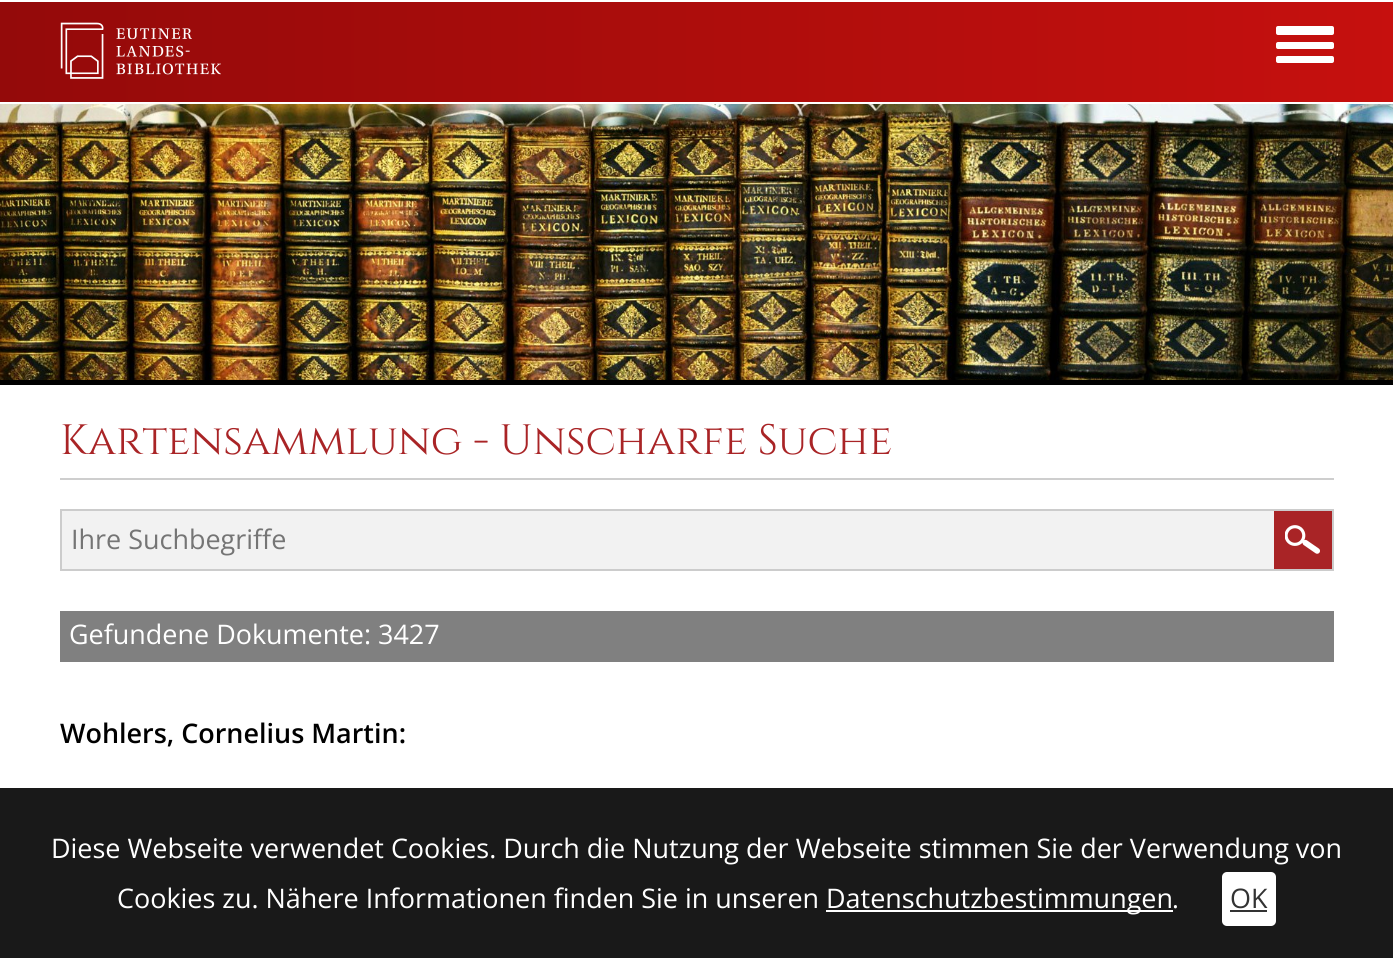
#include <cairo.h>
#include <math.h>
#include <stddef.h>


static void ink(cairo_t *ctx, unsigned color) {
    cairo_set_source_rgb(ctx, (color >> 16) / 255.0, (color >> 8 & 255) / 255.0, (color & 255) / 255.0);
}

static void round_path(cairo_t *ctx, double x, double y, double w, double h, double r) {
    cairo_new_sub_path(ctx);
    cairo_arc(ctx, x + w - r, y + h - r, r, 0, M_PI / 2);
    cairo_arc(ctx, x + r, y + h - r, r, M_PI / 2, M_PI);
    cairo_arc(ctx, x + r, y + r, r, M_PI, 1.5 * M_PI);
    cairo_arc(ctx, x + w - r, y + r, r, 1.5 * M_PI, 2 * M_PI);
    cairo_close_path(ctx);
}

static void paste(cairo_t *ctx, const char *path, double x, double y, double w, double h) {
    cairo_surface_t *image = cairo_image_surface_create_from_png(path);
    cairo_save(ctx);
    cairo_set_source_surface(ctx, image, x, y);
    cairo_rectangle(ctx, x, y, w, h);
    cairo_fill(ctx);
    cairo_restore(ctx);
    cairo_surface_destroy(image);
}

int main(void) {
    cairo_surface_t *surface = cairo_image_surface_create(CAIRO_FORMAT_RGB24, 1393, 958);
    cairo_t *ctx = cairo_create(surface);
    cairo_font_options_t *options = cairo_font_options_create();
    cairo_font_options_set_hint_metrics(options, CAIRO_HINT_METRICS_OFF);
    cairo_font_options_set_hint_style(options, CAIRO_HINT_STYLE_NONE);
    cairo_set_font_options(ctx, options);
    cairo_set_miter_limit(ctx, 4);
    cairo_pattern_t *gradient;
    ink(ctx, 0xFFFFFF);
    cairo_paint(ctx);
    gradient = cairo_pattern_create_linear(0, 52, 1393, 52);
    cairo_pattern_add_color_stop_rgba(gradient, 0, 0.58, 0.039, 0.039, 1);
    cairo_pattern_add_color_stop_rgba(gradient, 1, 0.776, 0.063, 0.055, 1);
    cairo_set_source(ctx, gradient);
    cairo_pattern_destroy(gradient);
    cairo_rectangle(ctx, 0, 2, 1393, 100);
    cairo_fill(ctx);
    paste(ctx, "media/1.png", 60, 22, 161, 57);
    ink(ctx, 0xFFFFFF);
    round_path(ctx, 1276, 26, 58, 9, 2);
    cairo_fill(ctx);
    round_path(ctx, 1276, 42, 58, 7, 2);
    cairo_fill(ctx);
    round_path(ctx, 1276, 56, 58, 7, 2);
    cairo_fill(ctx);
    paste(ctx, "media/2.png", 0, 104, 1393, 276);
    ink(ctx, 0x000000);
    cairo_rectangle(ctx, 0, 380, 1393, 5);
    cairo_fill(ctx);
    ink(ctx, 0xCECECE);
    cairo_rectangle(ctx, 60, 478, 1274, 2);
    cairo_fill(ctx);
    cairo_select_font_face(ctx, "Cinzel", CAIRO_FONT_SLANT_NORMAL, CAIRO_FONT_WEIGHT_NORMAL);
    cairo_set_font_size(ctx, 42.4);
    ink(ctx, 0xA92426);
    cairo_move_to(ctx, 60, 454);
    cairo_show_text(ctx, "Kartensammlung - Unscharfe Suche");
    ink(ctx, 0xF2F2F2);
    cairo_rectangle(ctx, 62, 511, 1212, 58);
    cairo_fill(ctx);
    cairo_rectangle(ctx, 61, 510, 1272, 60);
    ink(ctx, 0xCCCCCC);
    cairo_stroke(ctx);
    cairo_select_font_face(ctx, "Open Sans", CAIRO_FONT_SLANT_NORMAL, CAIRO_FONT_WEIGHT_NORMAL);
    cairo_set_font_size(ctx, 26.95);
    ink(ctx, 0x757575);
    cairo_move_to(ctx, 71, 549);
    cairo_show_text(ctx, "Ihre Suchbegriffe");
    ink(ctx, 0xA92426);
    cairo_rectangle(ctx, 1274, 511, 58, 58);
    cairo_fill(ctx);
    paste(ctx, "media/3.png", 1285, 525, 35, 29);
    ink(ctx, 0x808080);
    cairo_rectangle(ctx, 60, 611, 1274, 51);
    cairo_fill(ctx);
    ink(ctx, 0xFFFFFF);
    cairo_move_to(ctx, 69, 644);
    cairo_show_text(ctx, "Gefundene Dokumente: 3427");
    cairo_select_font_face(ctx, "Open Sans SemiBold", CAIRO_FONT_SLANT_NORMAL, CAIRO_FONT_WEIGHT_NORMAL);
    ink(ctx, 0x000000);
    cairo_move_to(ctx, 60, 743);
    cairo_show_text(ctx, "Wohlers, Cornelius Martin:");
    cairo_set_source_rgba(ctx, 0, 0, 0, 0.9);
    cairo_rectangle(ctx, 0, 788, 1393, 170);
    cairo_fill(ctx);
    cairo_select_font_face(ctx, "Open Sans", CAIRO_FONT_SLANT_NORMAL, CAIRO_FONT_WEIGHT_NORMAL);
    ink(ctx, 0xFFFFFF);
    cairo_move_to(ctx, 51, 858);
    cairo_show_text(ctx, "Diese Webseite verwendet Cookies. Durch die Nutzung der Webseite stimmen Sie der Verwendung von");
    cairo_move_to(ctx, 117, 908);
    cairo_show_text(ctx, "Cookies zu. Nähere Informationen finden Sie in unseren");
    cairo_rectangle(ctx, 826, 910, 347, 2);
    cairo_fill(ctx);
    cairo_move_to(ctx, 826, 908);
    cairo_show_text(ctx, "Datenschutzbestimmungen");
    cairo_set_font_size(ctx, 26);
    cairo_move_to(ctx, 1172, 908);
    cairo_show_text(ctx, ".");
    round_path(ctx, 1222, 872, 54, 54, 5);
    cairo_fill(ctx);
    cairo_set_font_size(ctx, 26.95);
    ink(ctx, 0x333333);
    cairo_move_to(ctx, 1230, 908);
    cairo_show_text(ctx, "OK");
    cairo_rectangle(ctx, 1230, 910, 37, 2);
    cairo_fill(ctx);
    cairo_surface_write_to_png(surface, "image.png");
    cairo_font_options_destroy(options);
    cairo_destroy(ctx);
    cairo_surface_destroy(surface);
    return 0;
}
